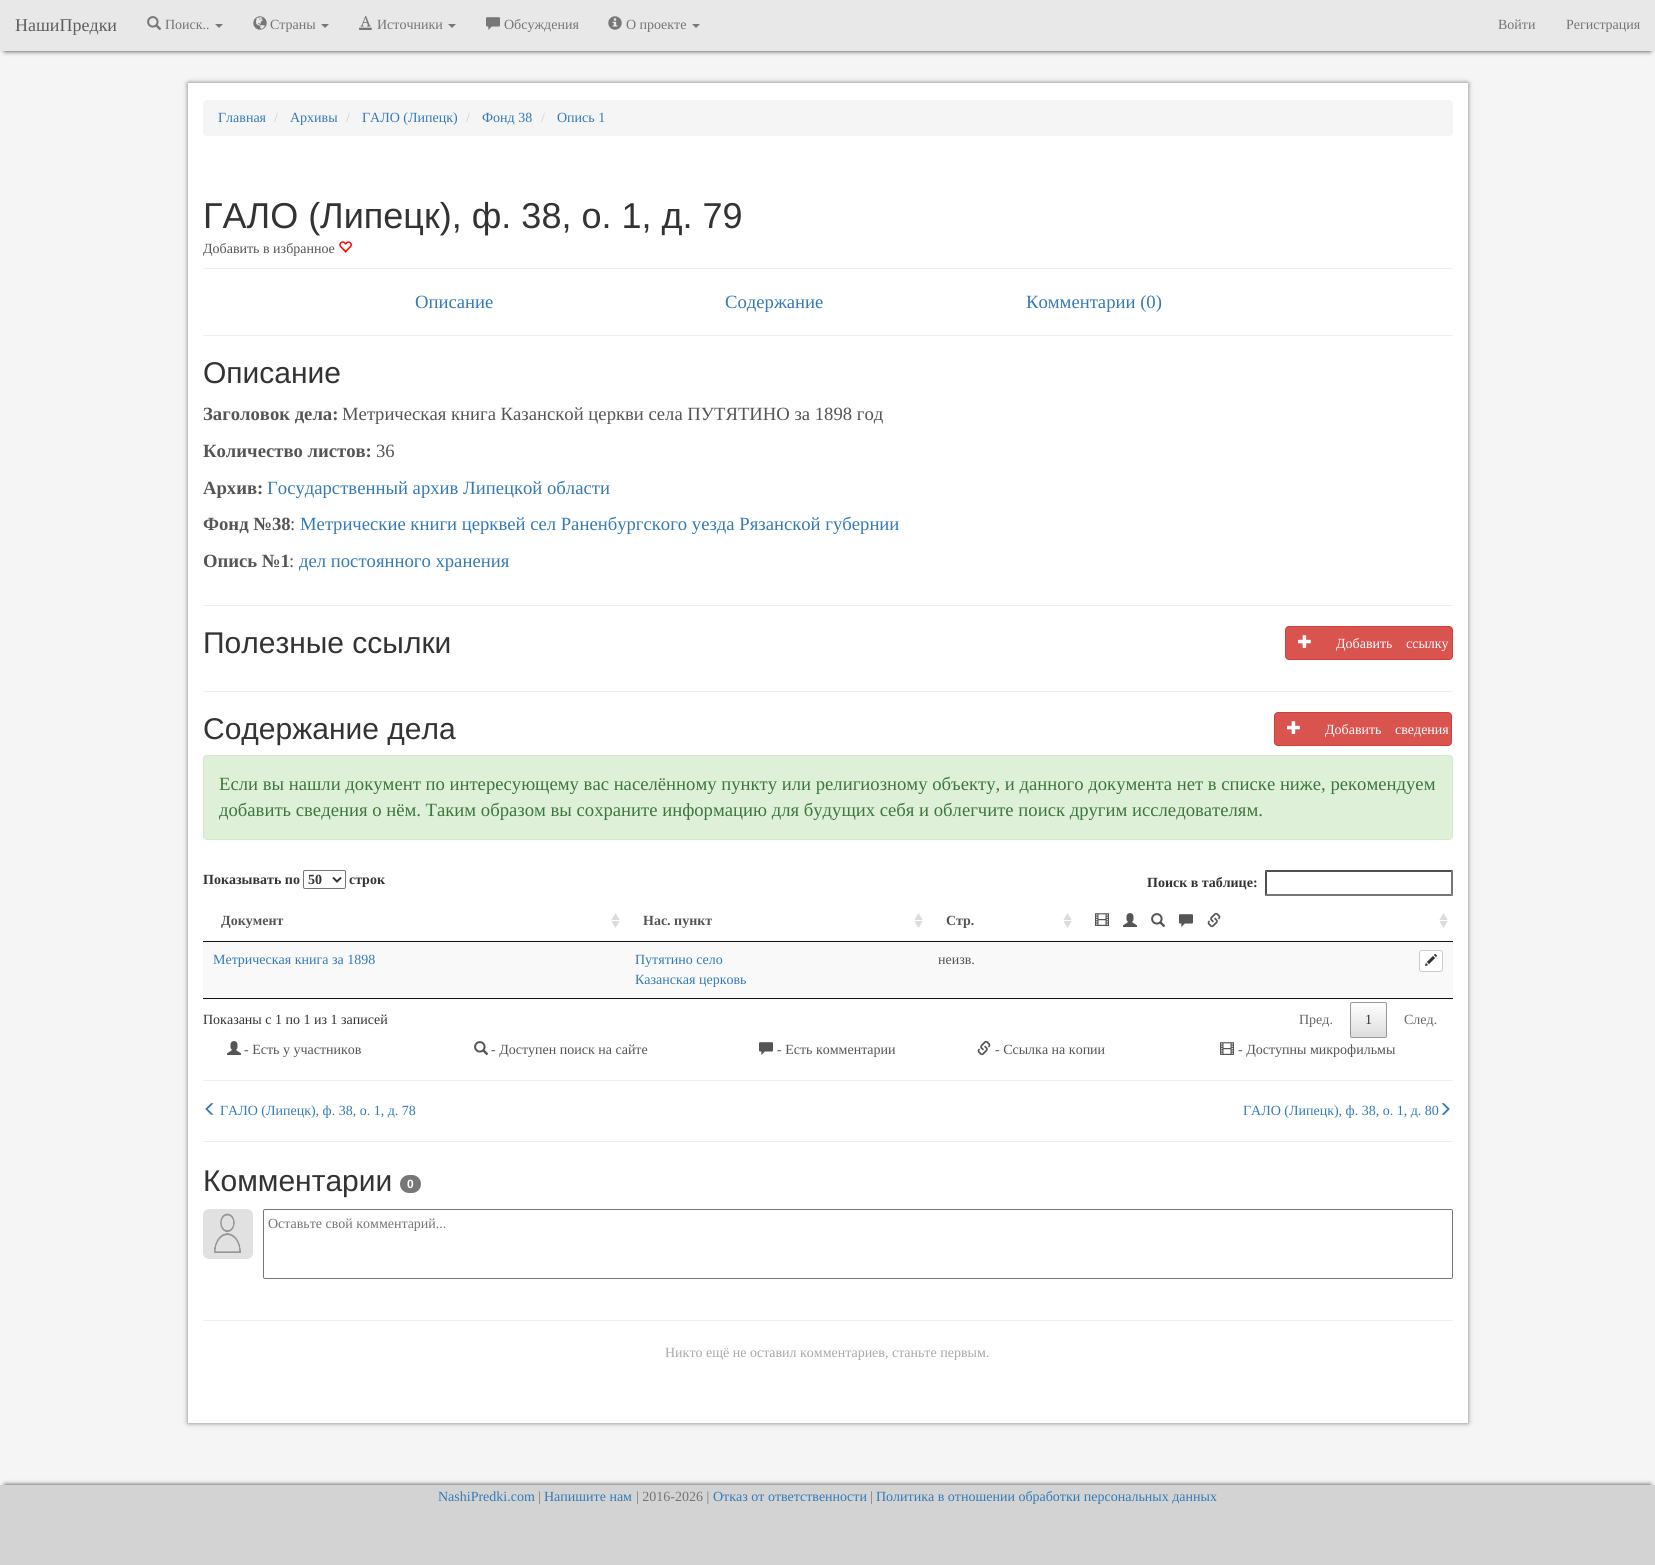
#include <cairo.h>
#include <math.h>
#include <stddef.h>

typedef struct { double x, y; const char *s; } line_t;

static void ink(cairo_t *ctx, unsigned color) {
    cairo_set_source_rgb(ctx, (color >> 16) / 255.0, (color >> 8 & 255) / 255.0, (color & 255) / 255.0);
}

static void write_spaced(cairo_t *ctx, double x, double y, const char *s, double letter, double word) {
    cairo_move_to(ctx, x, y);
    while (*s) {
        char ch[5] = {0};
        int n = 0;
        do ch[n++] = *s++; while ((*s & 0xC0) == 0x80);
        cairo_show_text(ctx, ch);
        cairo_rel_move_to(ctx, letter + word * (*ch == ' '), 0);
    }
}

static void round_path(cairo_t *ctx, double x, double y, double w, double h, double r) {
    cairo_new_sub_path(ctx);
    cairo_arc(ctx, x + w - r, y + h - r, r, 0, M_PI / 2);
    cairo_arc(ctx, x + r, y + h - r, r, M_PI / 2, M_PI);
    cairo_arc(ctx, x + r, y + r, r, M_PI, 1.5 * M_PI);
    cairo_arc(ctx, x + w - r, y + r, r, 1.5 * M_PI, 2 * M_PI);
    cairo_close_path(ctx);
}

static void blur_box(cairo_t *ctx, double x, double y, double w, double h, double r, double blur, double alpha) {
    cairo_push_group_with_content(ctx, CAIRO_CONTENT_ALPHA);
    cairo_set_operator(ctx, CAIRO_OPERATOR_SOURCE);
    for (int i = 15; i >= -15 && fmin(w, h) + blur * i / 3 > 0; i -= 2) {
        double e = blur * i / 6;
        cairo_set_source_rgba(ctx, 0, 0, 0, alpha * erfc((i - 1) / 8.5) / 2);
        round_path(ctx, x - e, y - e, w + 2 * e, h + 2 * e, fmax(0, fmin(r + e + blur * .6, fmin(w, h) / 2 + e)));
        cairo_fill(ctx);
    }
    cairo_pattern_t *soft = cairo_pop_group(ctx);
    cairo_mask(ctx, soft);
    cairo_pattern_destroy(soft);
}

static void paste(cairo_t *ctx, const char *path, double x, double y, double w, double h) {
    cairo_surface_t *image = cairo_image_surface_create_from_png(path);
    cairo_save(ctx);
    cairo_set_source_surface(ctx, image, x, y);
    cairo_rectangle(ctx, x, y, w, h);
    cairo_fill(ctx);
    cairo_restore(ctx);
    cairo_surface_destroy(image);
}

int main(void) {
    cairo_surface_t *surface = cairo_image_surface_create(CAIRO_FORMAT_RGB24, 1655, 1565);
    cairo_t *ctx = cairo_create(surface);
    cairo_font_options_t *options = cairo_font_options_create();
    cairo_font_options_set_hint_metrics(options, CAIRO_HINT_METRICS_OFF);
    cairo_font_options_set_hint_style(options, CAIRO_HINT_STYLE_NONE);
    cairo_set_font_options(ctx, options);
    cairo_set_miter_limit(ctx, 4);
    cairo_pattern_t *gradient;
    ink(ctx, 0xF5F5F5);
    cairo_paint(ctx);
    ink(ctx, 0x333333);
    blur_box(ctx, 5, 10, 1645, 41, 0, 2.5, 1);
    ink(ctx, 0xE8E8E8);
    cairo_rectangle(ctx, 0, 0, 1655, 50);
    cairo_fill(ctx);
    ink(ctx, 0xE7E7E7);
    cairo_rectangle(ctx, 0, 50, 1655, 1);
    cairo_fill(ctx);
    cairo_select_font_face(ctx, "Liberation Serif", CAIRO_FONT_SLANT_NORMAL, CAIRO_FONT_WEIGHT_NORMAL);
    cairo_set_font_size(ctx, 18);
    ink(ctx, 0x5E5E5E);
    cairo_move_to(ctx, 15, 31);
    cairo_show_text(ctx, "НашиПредки");
    paste(ctx, "media/1.png", 147, 16, 14, 14);
    cairo_set_font_size(ctx, 14);
    ink(ctx, 0x757575);
    cairo_move_to(ctx, 165, 29);
    cairo_show_text(ctx, "Поиск..");
    ink(ctx, 0x777777);
    cairo_new_path(ctx);
    cairo_move_to(ctx, 215, 24);
    cairo_line_to(ctx, 223, 24);
    cairo_line_to(ctx, 219, 28);
    cairo_close_path(ctx);
    cairo_fill(ctx);
    paste(ctx, "media/2.png", 253, 16, 14, 14);
    ink(ctx, 0x757575);
    cairo_move_to(ctx, 270, 29);
    cairo_show_text(ctx, "Страны");
    ink(ctx, 0x777777);
    cairo_new_path(ctx);
    cairo_move_to(ctx, 321, 24);
    cairo_line_to(ctx, 329, 24);
    cairo_line_to(ctx, 325, 28);
    cairo_close_path(ctx);
    cairo_fill(ctx);
    paste(ctx, "media/3.png", 359, 16, 13, 14);
    ink(ctx, 0x757575);
    cairo_move_to(ctx, 377, 29);
    cairo_show_text(ctx, "Источники");
    ink(ctx, 0x777777);
    cairo_new_path(ctx);
    cairo_move_to(ctx, 448, 24);
    cairo_line_to(ctx, 456, 24);
    cairo_line_to(ctx, 452, 28);
    cairo_close_path(ctx);
    cairo_fill(ctx);
    paste(ctx, "media/4.png", 486, 17, 14, 13);
    ink(ctx, 0x757575);
    cairo_move_to(ctx, 504, 29);
    cairo_show_text(ctx, "Обсуждения");
    paste(ctx, "media/5.png", 608, 16, 14, 14);
    cairo_move_to(ctx, 626, 29);
    cairo_show_text(ctx, "О проекте");
    ink(ctx, 0x777777);
    cairo_new_path(ctx);
    cairo_move_to(ctx, 692, 24);
    cairo_line_to(ctx, 700, 24);
    cairo_line_to(ctx, 696, 28);
    cairo_close_path(ctx);
    cairo_fill(ctx);
    ink(ctx, 0x757575);
    cairo_move_to(ctx, 1498, 29);
    cairo_show_text(ctx, "Войти");
    cairo_move_to(ctx, 1566, 29);
    cairo_show_text(ctx, "Регистрация");
    ink(ctx, 0x000000);
    blur_box(ctx, 188, 83, 1280, 1340, 0, 2.5, 0.5);
    ink(ctx, 0xFFFFFF);
    cairo_rectangle(ctx, 188, 83, 1280, 1340);
    cairo_fill(ctx);
    ink(ctx, 0xF5F5F5);
    round_path(ctx, 203, 100, 1250, 36, 4);
    cairo_fill(ctx);
    ink(ctx, 0x337AB7);
    cairo_move_to(ctx, 218, 122);
    cairo_show_text(ctx, "Главная");
    ink(ctx, 0xCCCCCC);
    cairo_move_to(ctx, 274, 122);
    cairo_show_text(ctx, "/");
    ink(ctx, 0x337AB7);
    cairo_move_to(ctx, 290, 122);
    cairo_show_text(ctx, "Архивы");
    ink(ctx, 0xCCCCCC);
    cairo_move_to(ctx, 346, 122);
    cairo_show_text(ctx, "/");
    ink(ctx, 0x337AB7);
    cairo_move_to(ctx, 362, 122);
    cairo_show_text(ctx, "ГАЛО (Липецк)");
    ink(ctx, 0xCCCCCC);
    cairo_move_to(ctx, 466, 122);
    cairo_show_text(ctx, "/");
    ink(ctx, 0x337AB7);
    cairo_move_to(ctx, 482, 122);
    cairo_show_text(ctx, "Фонд 38");
    ink(ctx, 0xCCCCCC);
    cairo_move_to(ctx, 541, 122);
    cairo_show_text(ctx, "/");
    ink(ctx, 0x337AB7);
    cairo_move_to(ctx, 557, 122);
    cairo_show_text(ctx, "Опись 1");
    ink(ctx, 0xEEEEEE);
    cairo_rectangle(ctx, 203, 268, 1250, 1);
    cairo_fill(ctx);
    cairo_select_font_face(ctx, "Liberation Sans", CAIRO_FONT_SLANT_NORMAL, CAIRO_FONT_WEIGHT_NORMAL);
    cairo_set_font_size(ctx, 36);
    ink(ctx, 0x333333);
    cairo_move_to(ctx, 203, 228);
    cairo_show_text(ctx, "ГАЛО (Липецк), ф. 38, о. 1, д. 79");
    cairo_select_font_face(ctx, "Liberation Serif", CAIRO_FONT_SLANT_NORMAL, CAIRO_FONT_WEIGHT_NORMAL);
    cairo_set_font_size(ctx, 14);
    ink(ctx, 0x555555);
    cairo_move_to(ctx, 203, 253);
    cairo_show_text(ctx, "Добавить в избранное");
    paste(ctx, "media/6.png", 339, 241, 13, 12);
    cairo_set_font_size(ctx, 18.67);
    ink(ctx, 0x337AB7);
    {
        static const line_t items[] = {
            {415, 308, "Описание"},
            {725, 308, "Содержание"},
            {1026, 308, "Комментарии (0)"},
        };
        for (size_t i = 0; i < sizeof items / sizeof *items; i++) {
            cairo_move_to(ctx, items[i].x, items[i].y);
            cairo_show_text(ctx, items[i].s);
        }
    }
    ink(ctx, 0xEEEEEE);
    cairo_rectangle(ctx, 203, 335, 1250, 1);
    cairo_fill(ctx);
    cairo_select_font_face(ctx, "Liberation Sans", CAIRO_FONT_SLANT_NORMAL, CAIRO_FONT_WEIGHT_NORMAL);
    cairo_set_font_size(ctx, 30);
    ink(ctx, 0x333333);
    cairo_move_to(ctx, 203, 383);
    cairo_show_text(ctx, "Описание");
    cairo_select_font_face(ctx, "Liberation Serif", CAIRO_FONT_SLANT_NORMAL, CAIRO_FONT_WEIGHT_BOLD);
    cairo_set_font_size(ctx, 18.67);
    ink(ctx, 0x555555);
    cairo_move_to(ctx, 203, 420);
    cairo_show_text(ctx, "Заголовок дела:");
    cairo_select_font_face(ctx, "Liberation Serif", CAIRO_FONT_SLANT_NORMAL, CAIRO_FONT_WEIGHT_NORMAL);
    cairo_move_to(ctx, 342, 420);
    cairo_show_text(ctx, "Метрическая книга Казанской церкви села ПУТЯТИНО за 1898 год");
    cairo_select_font_face(ctx, "Liberation Serif", CAIRO_FONT_SLANT_NORMAL, CAIRO_FONT_WEIGHT_BOLD);
    cairo_move_to(ctx, 203, 457);
    cairo_show_text(ctx, "Количество листов:");
    cairo_select_font_face(ctx, "Liberation Serif", CAIRO_FONT_SLANT_NORMAL, CAIRO_FONT_WEIGHT_NORMAL);
    cairo_move_to(ctx, 376, 457);
    cairo_show_text(ctx, "36");
    cairo_select_font_face(ctx, "Liberation Serif", CAIRO_FONT_SLANT_NORMAL, CAIRO_FONT_WEIGHT_BOLD);
    cairo_move_to(ctx, 203, 494);
    cairo_show_text(ctx, "Архив:");
    cairo_select_font_face(ctx, "Liberation Serif", CAIRO_FONT_SLANT_NORMAL, CAIRO_FONT_WEIGHT_NORMAL);
    ink(ctx, 0x337AB7);
    cairo_move_to(ctx, 267, 494);
    cairo_show_text(ctx, "Государственный архив Липецкой области");
    cairo_select_font_face(ctx, "Liberation Serif", CAIRO_FONT_SLANT_NORMAL, CAIRO_FONT_WEIGHT_BOLD);
    ink(ctx, 0x555555);
    cairo_move_to(ctx, 203, 530);
    cairo_show_text(ctx, "Фонд №38");
    cairo_select_font_face(ctx, "Liberation Serif", CAIRO_FONT_SLANT_NORMAL, CAIRO_FONT_WEIGHT_NORMAL);
    cairo_move_to(ctx, 290, 530);
    cairo_show_text(ctx, ":");
    ink(ctx, 0x337AB7);
    cairo_move_to(ctx, 300, 530);
    cairo_show_text(ctx, "Метрические книги церквей сел Раненбургского уезда Рязанской губернии");
    cairo_select_font_face(ctx, "Liberation Serif", CAIRO_FONT_SLANT_NORMAL, CAIRO_FONT_WEIGHT_BOLD);
    ink(ctx, 0x555555);
    cairo_move_to(ctx, 203, 567);
    cairo_show_text(ctx, "Опись №1");
    cairo_select_font_face(ctx, "Liberation Serif", CAIRO_FONT_SLANT_NORMAL, CAIRO_FONT_WEIGHT_NORMAL);
    cairo_move_to(ctx, 289, 567);
    cairo_show_text(ctx, ":");
    ink(ctx, 0x337AB7);
    cairo_move_to(ctx, 299, 567);
    cairo_show_text(ctx, "дел постоянного хранения");
    ink(ctx, 0xEEEEEE);
    cairo_rectangle(ctx, 203, 605, 1250, 1);
    cairo_fill(ctx);
    cairo_select_font_face(ctx, "Liberation Sans", CAIRO_FONT_SLANT_NORMAL, CAIRO_FONT_WEIGHT_NORMAL);
    cairo_set_font_size(ctx, 30);
    ink(ctx, 0x333333);
    cairo_move_to(ctx, 203, 653);
    cairo_show_text(ctx, "Полезные ссылки");
    ink(ctx, 0xD9534F);
    round_path(ctx, 1285.5, 626.5, 167, 33, 3.5);
    cairo_fill_preserve(ctx);
    ink(ctx, 0xD43F3A);
    cairo_set_line_width(ctx, 1);
    cairo_stroke(ctx);
    paste(ctx, "media/7.png", 1298, 635, 13, 13);
    cairo_select_font_face(ctx, "Liberation Serif", CAIRO_FONT_SLANT_NORMAL, CAIRO_FONT_WEIGHT_NORMAL);
    cairo_set_font_size(ctx, 14);
    ink(ctx, 0xFFFFFF);
    write_spaced(ctx, 1336, 648, "Добавить ссылку", 0, 10);
    ink(ctx, 0xEEEEEE);
    cairo_rectangle(ctx, 203, 691, 1250, 1);
    cairo_fill(ctx);
    cairo_select_font_face(ctx, "Liberation Sans", CAIRO_FONT_SLANT_NORMAL, CAIRO_FONT_WEIGHT_NORMAL);
    cairo_set_font_size(ctx, 30);
    ink(ctx, 0x333333);
    cairo_move_to(ctx, 203, 739);
    cairo_show_text(ctx, "Содержание дела");
    ink(ctx, 0xD9534F);
    round_path(ctx, 1274.5, 712.5, 177, 33, 3.5);
    cairo_fill_preserve(ctx);
    ink(ctx, 0xD43F3A);
    cairo_stroke(ctx);
    paste(ctx, "media/7.png", 1287, 721, 13, 13);
    cairo_select_font_face(ctx, "Liberation Serif", CAIRO_FONT_SLANT_NORMAL, CAIRO_FONT_WEIGHT_NORMAL);
    cairo_set_font_size(ctx, 14);
    ink(ctx, 0xFFFFFF);
    write_spaced(ctx, 1325, 734, "Добавить сведения", 0, 10);
    ink(ctx, 0xDFF0D8);
    round_path(ctx, 203.5, 755.5, 1249, 84, 3.5);
    cairo_fill_preserve(ctx);
    ink(ctx, 0xD6E9C6);
    cairo_stroke(ctx);
    cairo_set_font_size(ctx, 18.67);
    ink(ctx, 0x3C763D);
    cairo_move_to(ctx, 219, 790);
    cairo_show_text(ctx, "Если вы нашли документ по интересующему вас населённому пункту или религиозному объекту, и данного документа нет в списке ниже, рекомендуем");
    cairo_move_to(ctx, 219, 816);
    cairo_show_text(ctx, "добавить сведения о нём. Таким образом вы сохраните информацию для будущих себя и облегчите поиск другим исследователям.");
    cairo_select_font_face(ctx, "Liberation Serif", CAIRO_FONT_SLANT_NORMAL, CAIRO_FONT_WEIGHT_BOLD);
    cairo_set_font_size(ctx, 14);
    ink(ctx, 0x333333);
    cairo_move_to(ctx, 203, 884);
    cairo_show_text(ctx, "Показывать по");
    round_path(ctx, 303.5, 870.5, 42, 18, 1.5);
    ink(ctx, 0x767676);
    cairo_stroke(ctx);
    cairo_new_path(ctx);
    cairo_move_to(ctx, 333, 877.5);
    cairo_line_to(ctx, 337, 881.5);
    cairo_line_to(ctx, 341, 877.5);
    ink(ctx, 0x333333);
    cairo_set_line_width(ctx, 2);
    cairo_stroke(ctx);
    {
        static const line_t items[] = {
            {308, 884, "50"},
            {349, 884, "строк"},
            {1147, 887, "Поиск в таблице:"},
        };
        for (size_t i = 0; i < sizeof items / sizeof *items; i++) {
            cairo_move_to(ctx, items[i].x, items[i].y);
            cairo_show_text(ctx, items[i].s);
        }
    }
    ink(ctx, 0x4F4F4F);
    cairo_new_path(ctx);
    cairo_move_to(ctx, 1265, 870);
    cairo_line_to(ctx, 1453, 870);
    cairo_line_to(ctx, 1451, 872);
    cairo_line_to(ctx, 1267, 872);
    cairo_close_path(ctx);
    cairo_fill(ctx);
    ink(ctx, 0x767676);
    cairo_new_path(ctx);
    cairo_move_to(ctx, 1453, 870);
    cairo_line_to(ctx, 1453, 896);
    cairo_line_to(ctx, 1451, 894);
    cairo_line_to(ctx, 1451, 872);
    cairo_close_path(ctx);
    cairo_fill(ctx);
    cairo_new_path(ctx);
    cairo_move_to(ctx, 1453, 896);
    cairo_line_to(ctx, 1265, 896);
    cairo_line_to(ctx, 1267, 894);
    cairo_line_to(ctx, 1451, 894);
    cairo_close_path(ctx);
    cairo_fill(ctx);
    ink(ctx, 0x4F4F4F);
    cairo_new_path(ctx);
    cairo_move_to(ctx, 1265, 896);
    cairo_line_to(ctx, 1265, 870);
    cairo_line_to(ctx, 1267, 872);
    cairo_line_to(ctx, 1267, 894);
    cairo_close_path(ctx);
    cairo_fill(ctx);
    ink(ctx, 0x111111);
    cairo_rectangle(ctx, 203, 998, 1250, 1);
    cairo_fill(ctx);
    paste(ctx, "media/8.png", 611, 913, 9, 15);
    cairo_rectangle(ctx, 203, 941, 1250, 1);
    cairo_fill(ctx);
    ink(ctx, 0x555555);
    cairo_move_to(ctx, 221, 925);
    cairo_show_text(ctx, "Документ");
    paste(ctx, "media/8.png", 914, 913, 9, 15);
    cairo_move_to(ctx, 643, 925);
    cairo_show_text(ctx, "Нас. пункт");
    paste(ctx, "media/8.png", 1063, 913, 9, 15);
    cairo_move_to(ctx, 946, 925);
    cairo_show_text(ctx, "Стр.");
    paste(ctx, "media/8.png", 1439, 913, 9, 15);
    paste(ctx, "media/9.png", 1095, 913, 14, 13);
    paste(ctx, "media/10.png", 1123, 913, 14, 14);
    paste(ctx, "media/11.png", 1151, 913, 15, 14);
    paste(ctx, "media/12.png", 1179, 914, 14, 13);
    paste(ctx, "media/13.png", 1207, 912, 14, 16);
    ink(ctx, 0xF9F9F9);
    cairo_rectangle(ctx, 203, 942, 1250, 56);
    cairo_fill(ctx);
    cairo_select_font_face(ctx, "Liberation Serif", CAIRO_FONT_SLANT_NORMAL, CAIRO_FONT_WEIGHT_NORMAL);
    ink(ctx, 0x337AB7);
    {
        static const line_t items[] = {
            {213, 964, "Метрическая книга за 1898"},
            {635, 964, "Путятино село"},
            {635, 984, "Казанская церковь"},
        };
        for (size_t i = 0; i < sizeof items / sizeof *items; i++) {
            cairo_move_to(ctx, items[i].x, items[i].y);
            cairo_show_text(ctx, items[i].s);
        }
    }
    ink(ctx, 0x555555);
    cairo_move_to(ctx, 938, 964);
    cairo_show_text(ctx, "неизв.");
    ink(ctx, 0xFFFFFF);
    round_path(ctx, 1419.5, 950.5, 23, 21, 2.5);
    cairo_fill_preserve(ctx);
    ink(ctx, 0xCCCCCC);
    cairo_set_line_width(ctx, 1);
    cairo_stroke(ctx);
    paste(ctx, "media/14.png", 1425, 954, 12, 12);
    ink(ctx, 0x333333);
    cairo_move_to(ctx, 203, 1024);
    cairo_show_text(ctx, "Показаны с 1 по 1 из 1 записей");
    ink(ctx, 0x666666);
    cairo_move_to(ctx, 1299, 1024);
    cairo_show_text(ctx, "Пред.");
    cairo_save(ctx);
    round_path(ctx, 1350, 1002, 37, 36, 2);
    cairo_clip(ctx);
    gradient = cairo_pattern_create_linear(1369, 1003, 1369, 1037);
    cairo_pattern_add_color_stop_rgba(gradient, 0, 1, 1, 1, 1);
    cairo_pattern_add_color_stop_rgba(gradient, 1, 0.863, 0.863, 0.863, 1);
    cairo_set_source(ctx, gradient);
    cairo_pattern_destroy(gradient);
    cairo_rectangle(ctx, 1350, 1003, 37, 34);
    cairo_fill(ctx);
    cairo_restore(ctx);
    round_path(ctx, 1350.5, 1002.5, 36, 35, 1.5);
    ink(ctx, 0x979797);
    cairo_stroke(ctx);
    ink(ctx, 0x333333);
    cairo_move_to(ctx, 1365, 1024);
    cairo_show_text(ctx, "1");
    ink(ctx, 0x666666);
    cairo_move_to(ctx, 1404, 1024);
    cairo_show_text(ctx, "След.");
    paste(ctx, "media/10.png", 227, 1041, 14, 14);
    ink(ctx, 0x555555);
    cairo_move_to(ctx, 244, 1054);
    cairo_show_text(ctx, "- Есть у участников");
    paste(ctx, "media/11.png", 474, 1041, 15, 14);
    cairo_move_to(ctx, 491, 1054);
    cairo_show_text(ctx, "- Доступен поиск на сайте");
    paste(ctx, "media/12.png", 759, 1042, 14, 13);
    cairo_move_to(ctx, 777, 1054);
    cairo_show_text(ctx, "- Есть комментарии");
    paste(ctx, "media/13.png", 977, 1040, 14, 16);
    cairo_move_to(ctx, 995, 1054);
    cairo_show_text(ctx, "- Ссылка на копии");
    paste(ctx, "media/9.png", 1220, 1042, 14, 13);
    cairo_move_to(ctx, 1238, 1054);
    cairo_show_text(ctx, "- Доступны микрофильмы");
    ink(ctx, 0xEEEEEE);
    cairo_rectangle(ctx, 203, 1080, 1250, 1);
    cairo_fill(ctx);
    paste(ctx, "media/15.png", 205, 1103, 9, 12);
    ink(ctx, 0x337AB7);
    cairo_move_to(ctx, 220, 1115);
    cairo_show_text(ctx, "ГАЛО (Липецк), ф. 38, о. 1, д. 78");
    cairo_move_to(ctx, 1243, 1115);
    cairo_show_text(ctx, "ГАЛО (Липецк), ф. 38, о. 1, д. 80");
    paste(ctx, "media/16.png", 1441, 1103, 9, 12);
    ink(ctx, 0xEEEEEE);
    cairo_rectangle(ctx, 203, 1141, 1250, 1);
    cairo_fill(ctx);
    cairo_select_font_face(ctx, "Liberation Sans", CAIRO_FONT_SLANT_NORMAL, CAIRO_FONT_WEIGHT_NORMAL);
    cairo_set_font_size(ctx, 30);
    ink(ctx, 0x333333);
    cairo_move_to(ctx, 203, 1191);
    cairo_show_text(ctx, "Комментарии");
    ink(ctx, 0x777777);
    round_path(ctx, 400, 1175, 21, 18, 9);
    cairo_fill(ctx);
    cairo_select_font_face(ctx, "Liberation Sans", CAIRO_FONT_SLANT_NORMAL, CAIRO_FONT_WEIGHT_BOLD);
    cairo_set_font_size(ctx, 12);
    ink(ctx, 0xFFFFFF);
    cairo_move_to(ctx, 407, 1188);
    cairo_show_text(ctx, "0");
    paste(ctx, "media/17.png", 203, 1209, 50, 50);
    round_path(ctx, 263.5, 1209.5, 1189, 69, 1.5);
    ink(ctx, 0x767676);
    cairo_stroke(ctx);
    cairo_select_font_face(ctx, "Liberation Serif", CAIRO_FONT_SLANT_NORMAL, CAIRO_FONT_WEIGHT_NORMAL);
    cairo_set_font_size(ctx, 14);
    ink(ctx, 0x757575);
    cairo_move_to(ctx, 268, 1228);
    cairo_show_text(ctx, "Оставьте свой комментарий...");
    ink(ctx, 0xEEEEEE);
    cairo_rectangle(ctx, 203, 1320, 1250, 1);
    cairo_fill(ctx);
    ink(ctx, 0xA9A9A9);
    cairo_move_to(ctx, 665, 1357);
    cairo_show_text(ctx, "Никто ещё не оставил комментариев, станьте первым.");
    ink(ctx, 0x333333);
    blur_box(ctx, 5, 1485, 1645, 70, 0, 2.5, 1);
    ink(ctx, 0xD3D3D3);
    cairo_rectangle(ctx, 0, 1485, 1655, 80);
    cairo_fill(ctx);
    ink(ctx, 0x337AB7);
    cairo_move_to(ctx, 438, 1501);
    cairo_show_text(ctx, "NashiPredki.com");
    ink(ctx, 0x757575);
    cairo_move_to(ctx, 538, 1501);
    cairo_show_text(ctx, "|");
    ink(ctx, 0x337AB7);
    cairo_move_to(ctx, 544, 1501);
    cairo_show_text(ctx, "Напишите нам");
    ink(ctx, 0x757575);
    cairo_move_to(ctx, 636, 1501);
    cairo_show_text(ctx, "| 2016-2026 |");
    ink(ctx, 0x337AB7);
    cairo_move_to(ctx, 713, 1501);
    cairo_show_text(ctx, "Отказ от ответственности");
    ink(ctx, 0x757575);
    cairo_move_to(ctx, 870, 1501);
    cairo_show_text(ctx, "|");
    ink(ctx, 0x337AB7);
    cairo_move_to(ctx, 876, 1501);
    cairo_show_text(ctx, "Политика в отношении обработки персональных данных");
    cairo_surface_write_to_png(surface, "image.png");
    cairo_font_options_destroy(options);
    cairo_destroy(ctx);
    cairo_surface_destroy(surface);
    return 0;
}
